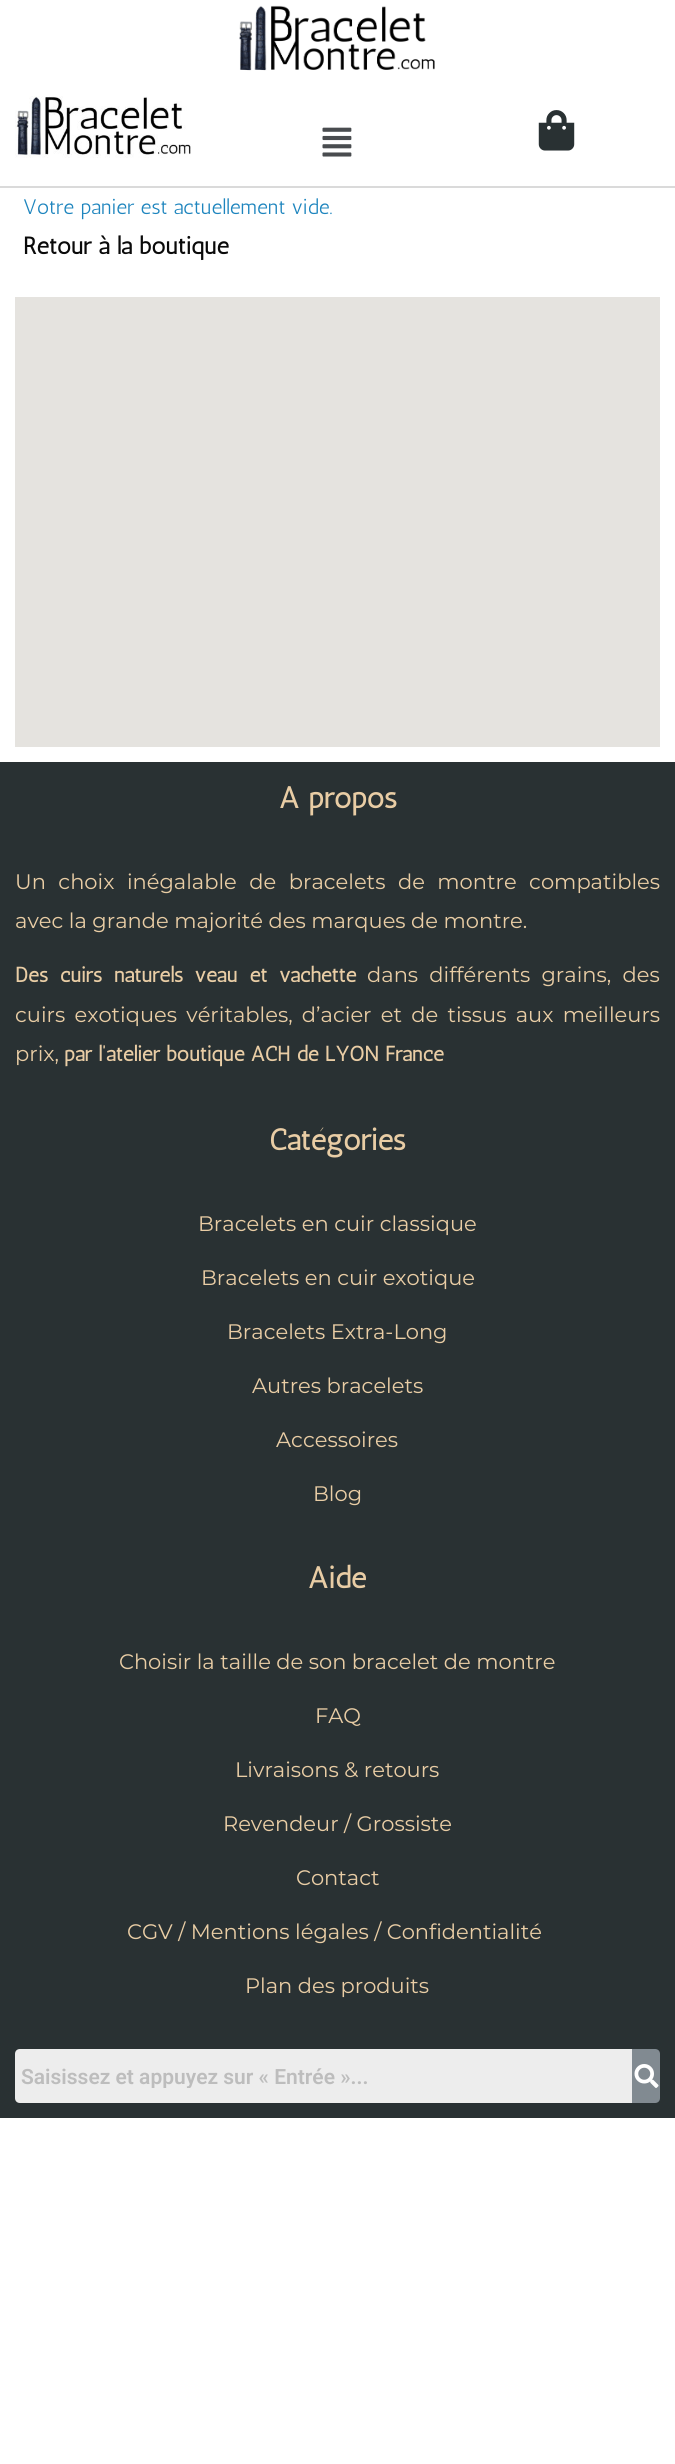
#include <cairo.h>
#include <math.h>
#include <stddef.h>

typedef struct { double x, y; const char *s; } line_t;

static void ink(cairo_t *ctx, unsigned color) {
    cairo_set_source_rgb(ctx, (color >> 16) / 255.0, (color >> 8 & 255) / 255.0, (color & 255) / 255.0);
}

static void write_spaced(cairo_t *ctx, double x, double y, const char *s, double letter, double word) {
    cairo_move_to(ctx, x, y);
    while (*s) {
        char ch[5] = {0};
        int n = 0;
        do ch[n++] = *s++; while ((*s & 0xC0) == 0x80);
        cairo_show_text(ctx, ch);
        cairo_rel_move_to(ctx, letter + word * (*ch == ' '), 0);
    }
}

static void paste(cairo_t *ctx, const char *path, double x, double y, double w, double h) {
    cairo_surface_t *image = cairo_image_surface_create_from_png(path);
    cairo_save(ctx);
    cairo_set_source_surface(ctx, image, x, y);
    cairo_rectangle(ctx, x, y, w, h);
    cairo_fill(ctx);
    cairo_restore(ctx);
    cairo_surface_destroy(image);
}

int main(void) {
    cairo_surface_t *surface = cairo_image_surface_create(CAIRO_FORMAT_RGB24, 675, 2464);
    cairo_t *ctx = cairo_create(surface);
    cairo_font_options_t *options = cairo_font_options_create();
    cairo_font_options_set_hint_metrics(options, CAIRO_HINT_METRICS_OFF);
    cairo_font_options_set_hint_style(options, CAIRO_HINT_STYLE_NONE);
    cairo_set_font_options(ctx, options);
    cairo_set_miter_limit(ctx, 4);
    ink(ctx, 0xFFFFFF);
    cairo_paint(ctx);
    paste(ctx, "media/1.png", 239, 5, 196, 66);
    ink(ctx, 0xDADADA);
    cairo_rectangle(ctx, 0, 186, 675, 2);
    cairo_fill(ctx);
    paste(ctx, "media/2.png", 15, 96, 176, 62);
    paste(ctx, "media/3.png", 322, 127, 30, 30);
    paste(ctx, "media/4.png", 538, 110, 37, 41);
    cairo_select_font_face(ctx, "Antic", CAIRO_FONT_SLANT_NORMAL, CAIRO_FONT_WEIGHT_NORMAL);
    cairo_set_font_size(ctx, 21);
    ink(ctx, 0x1E85BE);
    cairo_move_to(ctx, 23, 214);
    cairo_show_text(ctx, "Votre panier est actuellement vide.");
    cairo_select_font_face(ctx, "Antic", CAIRO_FONT_SLANT_NORMAL, CAIRO_FONT_WEIGHT_BOLD);
    cairo_set_font_size(ctx, 24);
    ink(ctx, 0x0A0A0A);
    cairo_move_to(ctx, 23, 254);
    cairo_show_text(ctx, "Retour à la boutique");
    ink(ctx, 0xE5E3DF);
    cairo_rectangle(ctx, 15, 297, 645, 450);
    cairo_fill(ctx);
    ink(ctx, 0x293133);
    cairo_rectangle(ctx, 0, 762, 675, 1356);
    cairo_fill(ctx);
    cairo_set_font_size(ctx, 30);
    ink(ctx, 0xE9CDA5);
    cairo_move_to(ctx, 279, 808);
    cairo_show_text(ctx, "A propos");
    cairo_select_font_face(ctx, "Montserrat", CAIRO_FONT_SLANT_NORMAL, CAIRO_FONT_WEIGHT_NORMAL);
    cairo_set_font_size(ctx, 21);
    write_spaced(ctx, 15, 889, "Un choix inégalable de bracelets de montre compatibles", 0, 7);
    cairo_move_to(ctx, 15, 928);
    cairo_show_text(ctx, "avec la grande majorité des marques de montre.");
    cairo_select_font_face(ctx, "Antic", CAIRO_FONT_SLANT_NORMAL, CAIRO_FONT_WEIGHT_BOLD);
    write_spaced(ctx, 15, 982, "Des cuirs naturels veau et vachette", 0, 5.75);
    cairo_select_font_face(ctx, "Montserrat", CAIRO_FONT_SLANT_NORMAL, CAIRO_FONT_WEIGHT_NORMAL);
    write_spaced(ctx, 367, 982, "dans différents grains, des", 0, 5.75);
    write_spaced(ctx, 15, 1022, "cuirs exotiques véritables, d’acier et de tissus aux meilleurs", 0, 3.75);
    cairo_move_to(ctx, 15, 1061);
    cairo_show_text(ctx, "prix,");
    cairo_select_font_face(ctx, "Antic", CAIRO_FONT_SLANT_NORMAL, CAIRO_FONT_WEIGHT_BOLD);
    cairo_move_to(ctx, 64, 1061);
    cairo_show_text(ctx, "par l’atelier boutique ACH de LYON France");
    cairo_set_font_size(ctx, 30);
    cairo_move_to(ctx, 269, 1150);
    cairo_show_text(ctx, "Catégories");
    cairo_select_font_face(ctx, "Montserrat", CAIRO_FONT_SLANT_NORMAL, CAIRO_FONT_WEIGHT_NORMAL);
    cairo_set_font_size(ctx, 21);
    {
        static const line_t items[] = {
            {198, 1231, "Bracelets en cuir classique"},
            {201, 1285, "Bracelets en cuir exotique"},
            {227, 1339, "Bracelets Extra-Long"},
            {252, 1393, "Autres bracelets"},
            {276, 1447, "Accessoires"},
            {313, 1501, "Blog"},
        };
        for (size_t i = 0; i < sizeof items / sizeof *items; i++) {
            cairo_move_to(ctx, items[i].x, items[i].y);
            cairo_show_text(ctx, items[i].s);
        }
    }
    cairo_select_font_face(ctx, "Antic", CAIRO_FONT_SLANT_NORMAL, CAIRO_FONT_WEIGHT_BOLD);
    cairo_set_font_size(ctx, 30);
    cairo_move_to(ctx, 308, 1588);
    cairo_show_text(ctx, "Aide");
    cairo_select_font_face(ctx, "Montserrat", CAIRO_FONT_SLANT_NORMAL, CAIRO_FONT_WEIGHT_NORMAL);
    cairo_set_font_size(ctx, 21);
    {
        static const line_t items[] = {
            {119, 1669, "Choisir la taille de son bracelet de montre"},
            {315, 1723, "FAQ"},
            {235, 1777, "Livraisons & retours"},
            {223, 1831, "Revendeur / Grossiste"},
            {296, 1885, "Contact"},
            {127, 1939, "CGV / Mentions légales / Confidentialité"},
            {245, 1993, "Plan des produits"},
        };
        for (size_t i = 0; i < sizeof items / sizeof *items; i++) {
            cairo_move_to(ctx, items[i].x, items[i].y);
            cairo_show_text(ctx, items[i].s);
        }
    }
    ink(ctx, 0xEDEDED);
    cairo_new_path(ctx);
    cairo_move_to(ctx, 20, 2049);
    cairo_line_to(ctx, 632, 2049);
    cairo_line_to(ctx, 632, 2103);
    cairo_line_to(ctx, 20, 2103);
    cairo_curve_to(ctx, 17, 2103, 15, 2101, 15, 2098);
    cairo_line_to(ctx, 15, 2054);
    cairo_curve_to(ctx, 15, 2051, 17, 2049, 20, 2049);
    cairo_close_path(ctx);
    cairo_fill(ctx);
    cairo_save(ctx);
    cairo_rectangle(ctx, 21, 2064, 605, 24);
    cairo_clip(ctx);
    cairo_select_font_face(ctx, "Roboto SemiBold", CAIRO_FONT_SLANT_NORMAL, CAIRO_FONT_WEIGHT_NORMAL);
    ink(ctx, 0xBDBDBD);
    cairo_move_to(ctx, 21, 2084);
    cairo_show_text(ctx, "Saisissez et appuyez sur « Entrée »...");
    cairo_restore(ctx);
    ink(ctx, 0x818A91);
    cairo_new_path(ctx);
    cairo_move_to(ctx, 632, 2049);
    cairo_line_to(ctx, 655, 2049);
    cairo_curve_to(ctx, 658, 2049, 660, 2051, 660, 2054);
    cairo_line_to(ctx, 660, 2098);
    cairo_curve_to(ctx, 660, 2101, 658, 2103, 655, 2103);
    cairo_line_to(ctx, 632, 2103);
    cairo_close_path(ctx);
    cairo_fill(ctx);
    paste(ctx, "media/5.png", 634, 2064, 25, 24);
    cairo_surface_write_to_png(surface, "image.png");
    cairo_font_options_destroy(options);
    cairo_destroy(ctx);
    cairo_surface_destroy(surface);
    return 0;
}
